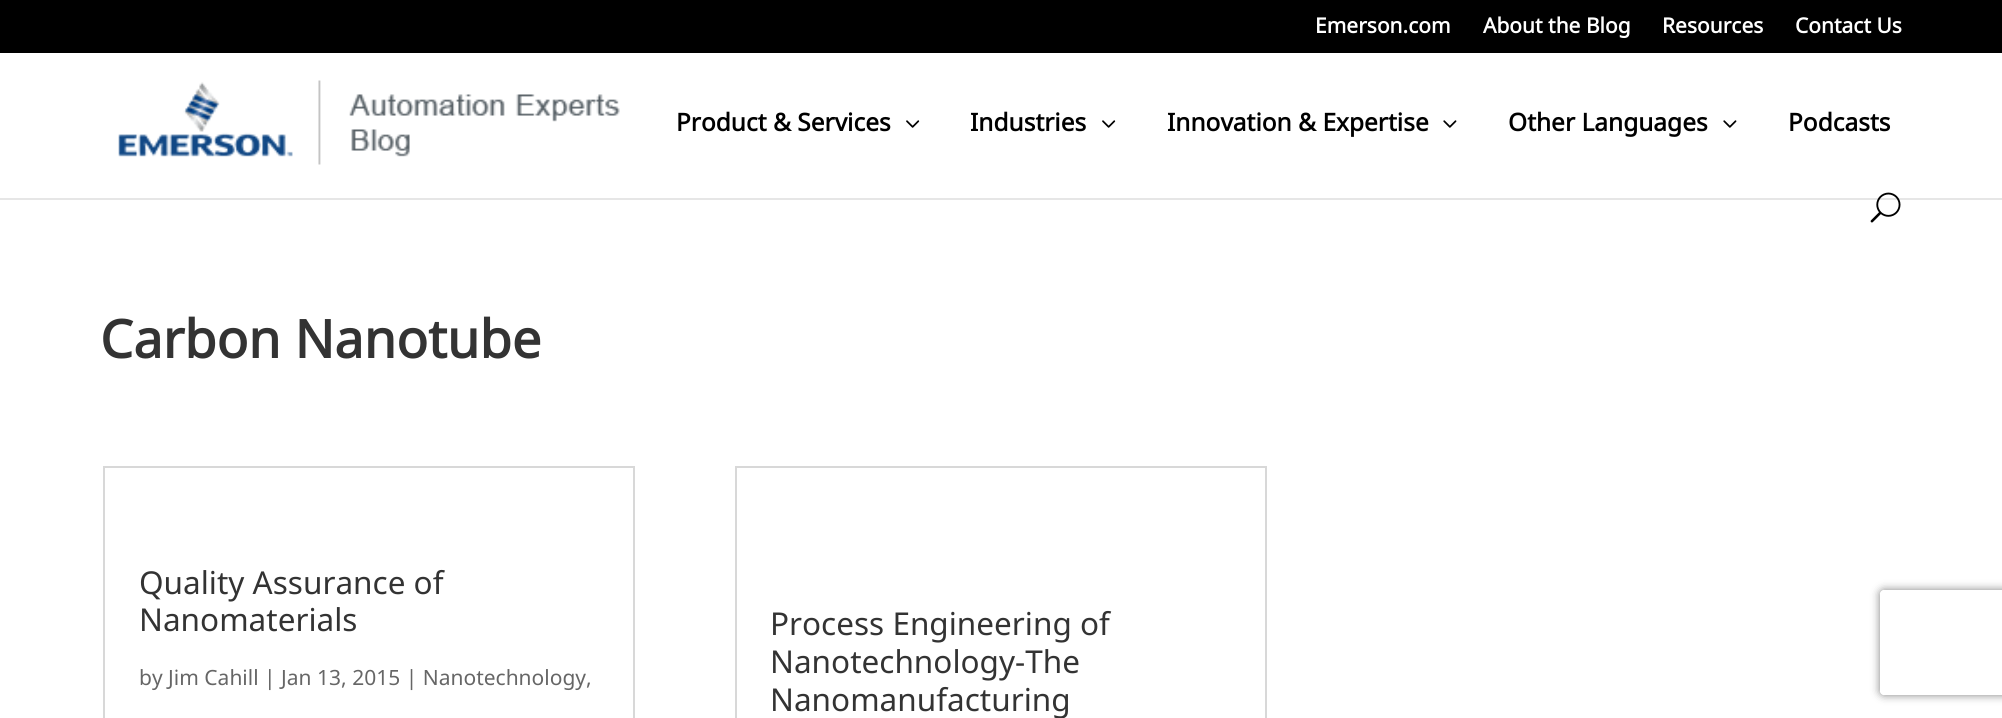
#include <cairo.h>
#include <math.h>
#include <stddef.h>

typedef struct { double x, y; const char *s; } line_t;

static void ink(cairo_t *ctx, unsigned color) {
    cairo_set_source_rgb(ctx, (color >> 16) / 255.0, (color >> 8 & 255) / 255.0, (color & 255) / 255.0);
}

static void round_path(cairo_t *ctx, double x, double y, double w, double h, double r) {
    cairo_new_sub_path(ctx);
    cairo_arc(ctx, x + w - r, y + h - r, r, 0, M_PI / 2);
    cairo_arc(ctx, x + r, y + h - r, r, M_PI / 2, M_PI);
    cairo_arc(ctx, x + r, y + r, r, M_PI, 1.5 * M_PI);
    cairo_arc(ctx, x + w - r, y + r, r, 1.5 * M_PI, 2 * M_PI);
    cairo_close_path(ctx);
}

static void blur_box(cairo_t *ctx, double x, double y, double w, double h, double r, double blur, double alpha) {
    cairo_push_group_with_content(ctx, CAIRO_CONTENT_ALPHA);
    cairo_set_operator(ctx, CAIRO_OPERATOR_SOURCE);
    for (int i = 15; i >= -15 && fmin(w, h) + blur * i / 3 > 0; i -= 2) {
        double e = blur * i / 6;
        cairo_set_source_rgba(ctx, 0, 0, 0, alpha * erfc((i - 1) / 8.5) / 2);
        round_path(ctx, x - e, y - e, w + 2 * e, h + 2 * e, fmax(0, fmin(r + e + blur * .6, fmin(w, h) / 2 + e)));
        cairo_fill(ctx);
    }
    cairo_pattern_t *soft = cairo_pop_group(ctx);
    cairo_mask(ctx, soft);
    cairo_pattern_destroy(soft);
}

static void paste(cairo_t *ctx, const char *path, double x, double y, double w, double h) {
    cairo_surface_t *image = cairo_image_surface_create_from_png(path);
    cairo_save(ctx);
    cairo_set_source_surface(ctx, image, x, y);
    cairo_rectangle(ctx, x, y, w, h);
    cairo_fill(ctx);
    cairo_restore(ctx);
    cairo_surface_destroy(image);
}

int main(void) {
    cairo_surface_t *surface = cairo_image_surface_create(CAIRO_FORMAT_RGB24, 2002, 718);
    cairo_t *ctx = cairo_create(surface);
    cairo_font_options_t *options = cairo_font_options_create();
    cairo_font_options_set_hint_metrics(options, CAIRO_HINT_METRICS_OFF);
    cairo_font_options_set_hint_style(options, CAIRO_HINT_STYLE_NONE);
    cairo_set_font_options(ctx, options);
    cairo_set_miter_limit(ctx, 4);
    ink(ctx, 0xFFFFFF);
    cairo_paint(ctx);
    ink(ctx, 0x000000);
    cairo_rectangle(ctx, 0, 0, 2002, 53);
    cairo_fill(ctx);
    cairo_select_font_face(ctx, "Noto Sans", CAIRO_FONT_SLANT_NORMAL, CAIRO_FONT_WEIGHT_BOLD);
    cairo_set_font_size(ctx, 21);
    ink(ctx, 0xFFFFFF);
    {
        static const line_t items[] = {
            {1315, 33, "Emerson.com"},
            {1483, 33, "About the Blog"},
            {1662, 33, "Resources"},
            {1795, 33, "Contact Us"},
        };
        for (size_t i = 0; i < sizeof items / sizeof *items; i++) {
            cairo_move_to(ctx, items[i].x, items[i].y);
            cairo_show_text(ctx, items[i].s);
        }
    }
    ink(ctx, 0xE6E6E6);
    cairo_rectangle(ctx, 0, 198, 2002, 2);
    cairo_fill(ctx);
    paste(ctx, "media/1.png", 118, 80, 502, 85);
    cairo_set_font_size(ctx, 24.5);
    ink(ctx, 0x000000);
    cairo_move_to(ctx, 676, 131);
    cairo_show_text(ctx, "Product & Services");
    paste(ctx, "media/2.png", 906, 120, 14, 8);
    cairo_move_to(ctx, 970, 131);
    cairo_show_text(ctx, "Industries");
    paste(ctx, "media/2.png", 1102, 120, 14, 8);
    cairo_move_to(ctx, 1167, 131);
    cairo_show_text(ctx, "Innovation & Expertise");
    paste(ctx, "media/3.png", 1443, 120, 14, 8);
    cairo_move_to(ctx, 1508, 131);
    cairo_show_text(ctx, "Other Languages");
    paste(ctx, "media/3.png", 1723, 120, 14, 8);
    cairo_move_to(ctx, 1788, 131);
    cairo_show_text(ctx, "Podcasts");
    paste(ctx, "media/4.png", 1870, 192, 31, 31);
    cairo_set_font_size(ctx, 52.5);
    ink(ctx, 0x333333);
    cairo_move_to(ctx, 100, 358);
    cairo_show_text(ctx, "Carbon Nanotube");
    cairo_rectangle(ctx, 104, 467, 530, 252);
    ink(ctx, 0xD8D8D8);
    cairo_stroke(ctx);
    cairo_select_font_face(ctx, "Noto Sans", CAIRO_FONT_SLANT_NORMAL, CAIRO_FONT_WEIGHT_NORMAL);
    cairo_set_font_size(ctx, 31.5);
    ink(ctx, 0x333333);
    cairo_move_to(ctx, 139, 594);
    cairo_show_text(ctx, "Quality Assurance of");
    cairo_move_to(ctx, 139, 631);
    cairo_show_text(ctx, "Nanomaterials");
    cairo_set_font_size(ctx, 21);
    ink(ctx, 0x666666);
    cairo_move_to(ctx, 139, 685);
    cairo_show_text(ctx, "by Jim Cahill | Jan 13, 2015 | Nanotechnology,");
    cairo_rectangle(ctx, 736, 467, 530, 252);
    ink(ctx, 0xD8D8D8);
    cairo_stroke(ctx);
    cairo_set_font_size(ctx, 31.5);
    ink(ctx, 0x333333);
    {
        static const line_t items[] = {
            {770, 635, "Process Engineering of"},
            {770, 673, "Nanotechnology-The"},
            {770, 711, "Nanomanufacturing"},
        };
        for (size_t i = 0; i < sizeof items / sizeof *items; i++) {
            cairo_move_to(ctx, items[i].x, items[i].y);
            cairo_show_text(ctx, items[i].s);
        }
    }
    cairo_save(ctx);
    cairo_set_fill_rule(ctx, CAIRO_FILL_RULE_EVEN_ODD);
    cairo_new_path(ctx);
    cairo_move_to(ctx, 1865, 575);
    cairo_line_to(ctx, 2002, 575);
    cairo_line_to(ctx, 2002, 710);
    cairo_line_to(ctx, 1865, 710);
    cairo_close_path(ctx);
    cairo_move_to(ctx, 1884, 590);
    cairo_line_to(ctx, 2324, 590);
    cairo_curve_to(ctx, 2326, 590, 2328, 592, 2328, 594);
    cairo_line_to(ctx, 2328, 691);
    cairo_curve_to(ctx, 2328, 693, 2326, 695, 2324, 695);
    cairo_line_to(ctx, 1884, 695);
    cairo_curve_to(ctx, 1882, 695, 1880, 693, 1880, 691);
    cairo_line_to(ctx, 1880, 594);
    cairo_curve_to(ctx, 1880, 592, 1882, 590, 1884, 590);
    cairo_close_path(ctx);
    cairo_clip(ctx);
    ink(ctx, 0x808080);
    blur_box(ctx, 1880, 590, 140, 105, 4, 4.5, 1);
    cairo_restore(ctx);
    cairo_surface_write_to_png(surface, "image.png");
    cairo_font_options_destroy(options);
    cairo_destroy(ctx);
    cairo_surface_destroy(surface);
    return 0;
}
